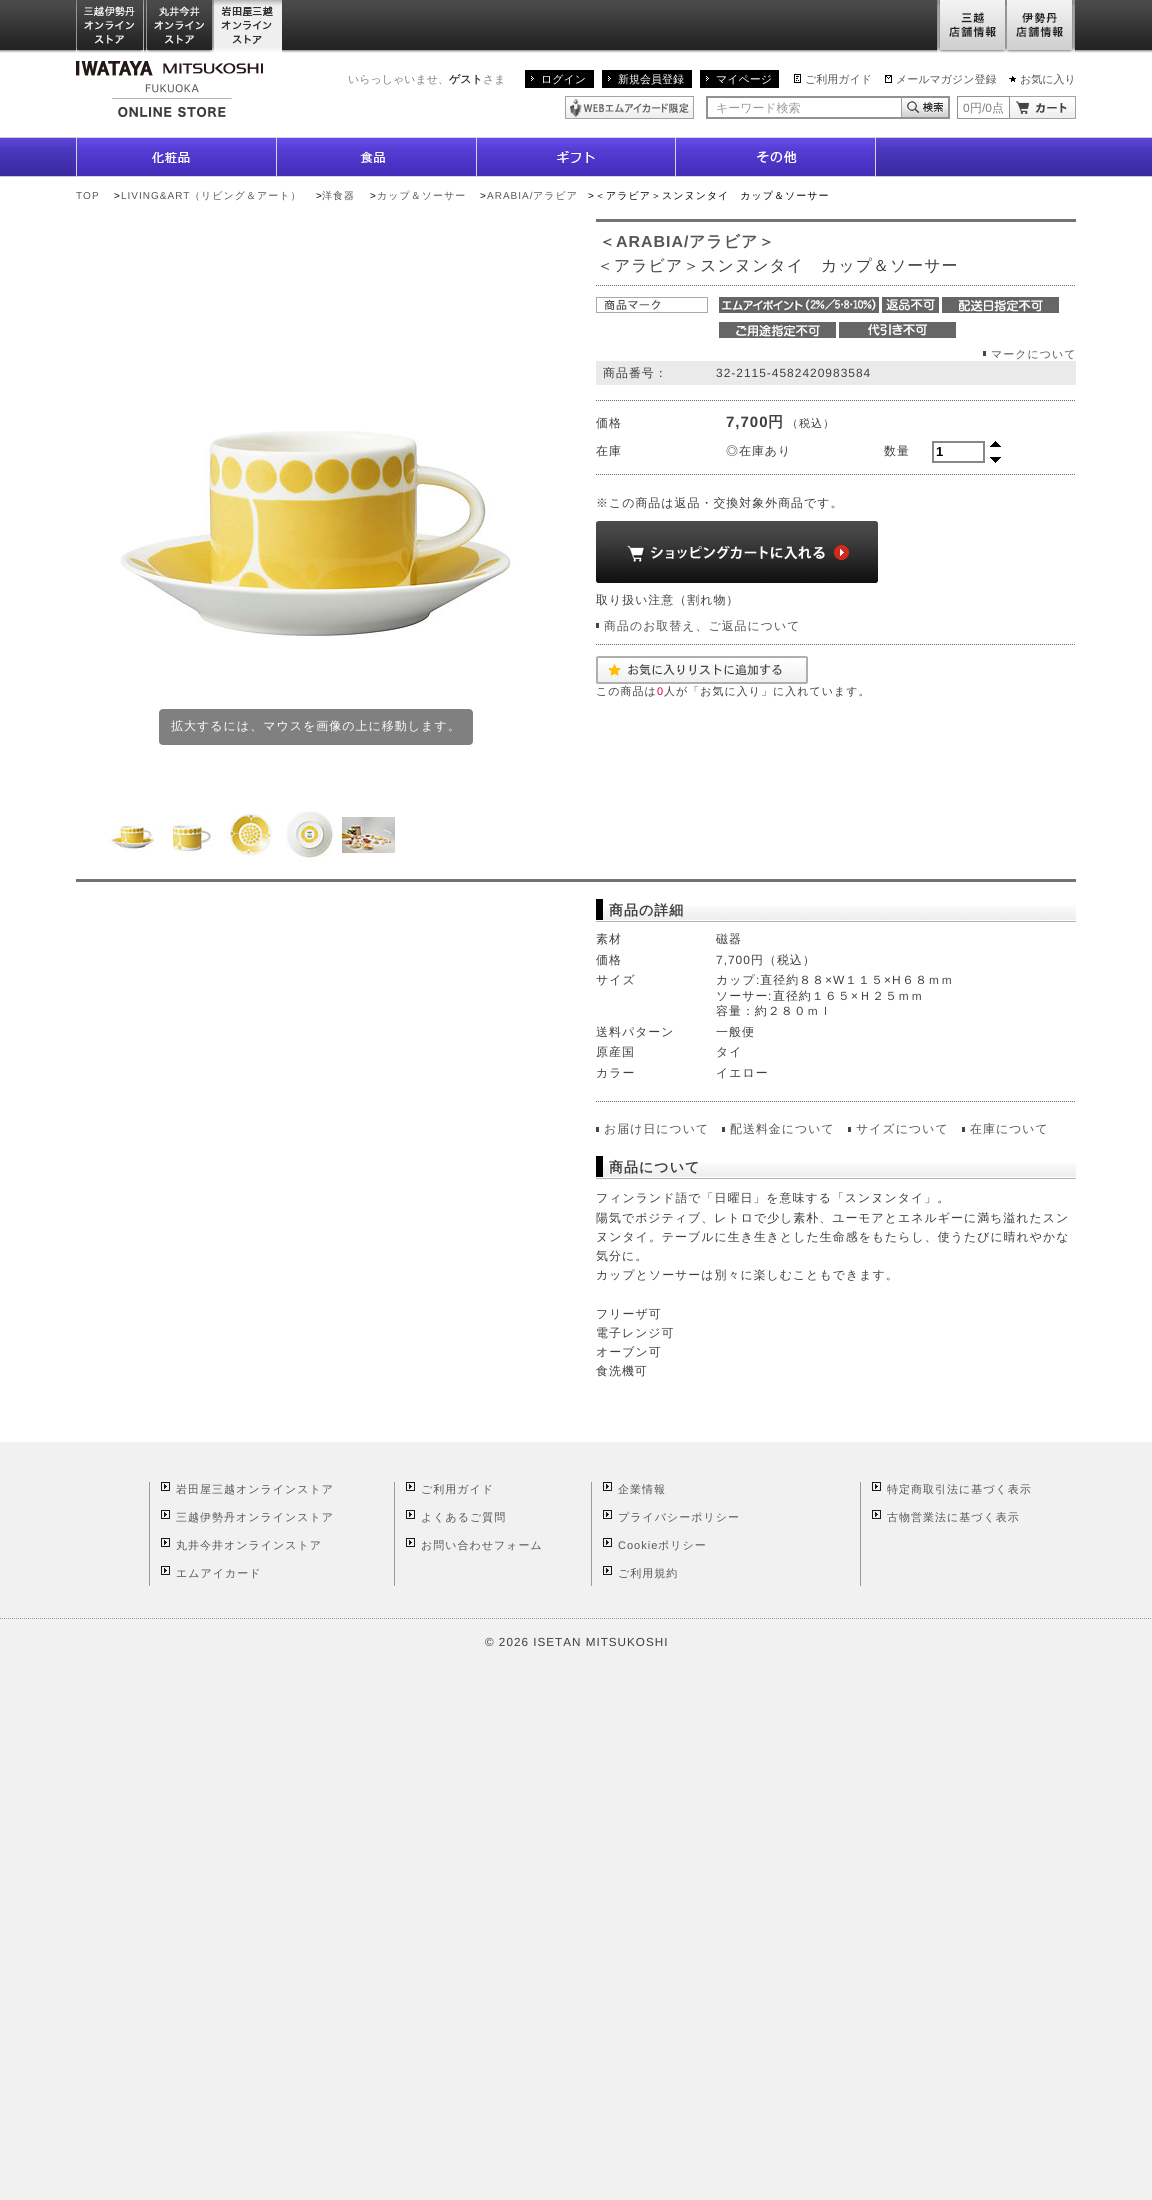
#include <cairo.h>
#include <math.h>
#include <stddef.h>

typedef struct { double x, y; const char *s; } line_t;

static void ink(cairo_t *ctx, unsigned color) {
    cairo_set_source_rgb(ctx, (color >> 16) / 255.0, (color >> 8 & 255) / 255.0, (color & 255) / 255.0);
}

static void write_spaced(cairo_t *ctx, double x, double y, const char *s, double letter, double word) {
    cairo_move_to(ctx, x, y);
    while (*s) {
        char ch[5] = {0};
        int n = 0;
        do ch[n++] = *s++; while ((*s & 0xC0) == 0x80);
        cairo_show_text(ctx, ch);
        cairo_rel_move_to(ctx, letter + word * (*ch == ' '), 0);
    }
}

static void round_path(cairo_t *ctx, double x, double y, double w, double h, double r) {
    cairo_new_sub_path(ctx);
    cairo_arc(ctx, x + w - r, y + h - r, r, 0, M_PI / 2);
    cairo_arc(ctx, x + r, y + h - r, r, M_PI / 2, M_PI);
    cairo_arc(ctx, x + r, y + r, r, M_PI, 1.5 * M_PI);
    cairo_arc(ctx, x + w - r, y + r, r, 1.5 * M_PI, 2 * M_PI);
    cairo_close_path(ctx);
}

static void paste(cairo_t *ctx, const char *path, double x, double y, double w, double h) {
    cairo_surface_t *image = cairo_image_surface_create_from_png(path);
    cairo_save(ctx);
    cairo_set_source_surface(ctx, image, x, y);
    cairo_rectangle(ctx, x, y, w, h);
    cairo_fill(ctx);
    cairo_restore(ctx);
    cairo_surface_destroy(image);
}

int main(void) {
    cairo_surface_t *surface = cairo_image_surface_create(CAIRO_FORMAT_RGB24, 1152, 2200);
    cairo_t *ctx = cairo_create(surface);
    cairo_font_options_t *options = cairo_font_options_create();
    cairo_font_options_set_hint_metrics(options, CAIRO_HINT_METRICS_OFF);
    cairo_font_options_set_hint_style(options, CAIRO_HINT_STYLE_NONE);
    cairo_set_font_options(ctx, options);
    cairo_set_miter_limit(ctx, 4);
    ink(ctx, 0xF1F1F1);
    cairo_paint(ctx);
    ink(ctx, 0xFFFFFF);
    cairo_rectangle(ctx, 0, 53, 1152, 1389);
    cairo_fill(ctx);
    paste(ctx, "media/1.png", 0, 0, 1152, 53);
    paste(ctx, "media/2.png", 76, 0, 68, 53);
    paste(ctx, "media/3.png", 146, 0, 68, 53);
    paste(ctx, "media/4.png", 214, 0, 68, 53);
    paste(ctx, "media/5.png", 937, 0, 69, 53);
    paste(ctx, "media/6.png", 1006, 0, 69, 53);
    paste(ctx, "media/7.png", 76, 61, 187, 56);
    cairo_select_font_face(ctx, "WenQuanYi Zen Hei Medium", CAIRO_FONT_SLANT_NORMAL, CAIRO_FONT_WEIGHT_NORMAL);
    cairo_set_font_size(ctx, 11);
    ink(ctx, 0x7F7F7F);
    cairo_move_to(ctx, 348, 83);
    cairo_show_text(ctx, "いらっしゃいませ、");
    cairo_select_font_face(ctx, "WenQuanYi Zen Hei", CAIRO_FONT_SLANT_NORMAL, CAIRO_FONT_WEIGHT_BOLD);
    ink(ctx, 0x333333);
    cairo_move_to(ctx, 449, 83);
    cairo_show_text(ctx, "ゲスト");
    cairo_select_font_face(ctx, "WenQuanYi Zen Hei Medium", CAIRO_FONT_SLANT_NORMAL, CAIRO_FONT_WEIGHT_NORMAL);
    ink(ctx, 0x7F7F7F);
    cairo_move_to(ctx, 483, 83);
    cairo_show_text(ctx, "さま");
    ink(ctx, 0x000000);
    cairo_rectangle(ctx, 525, 70, 69, 18);
    cairo_fill(ctx);
    paste(ctx, "media/8.png", 531, 76, 3, 5);
    ink(ctx, 0xFFFFFF);
    cairo_move_to(ctx, 541, 83);
    cairo_show_text(ctx, "ログイン");
    ink(ctx, 0x000000);
    cairo_rectangle(ctx, 602, 70, 90, 18);
    cairo_fill(ctx);
    paste(ctx, "media/8.png", 608, 76, 3, 5);
    ink(ctx, 0xFFFFFF);
    cairo_move_to(ctx, 618, 83);
    cairo_show_text(ctx, "新規会員登録");
    ink(ctx, 0x000000);
    cairo_rectangle(ctx, 700, 70, 79, 18);
    cairo_fill(ctx);
    paste(ctx, "media/8.png", 706, 76, 3, 5);
    ink(ctx, 0xFFFFFF);
    cairo_move_to(ctx, 716, 83);
    cairo_show_text(ctx, "マイページ");
    paste(ctx, "media/9.png", 794, 74, 7, 9);
    ink(ctx, 0x555555);
    cairo_move_to(ctx, 805, 83);
    cairo_show_text(ctx, "ご利用ガイド");
    paste(ctx, "media/10.png", 885, 75, 7, 8);
    cairo_move_to(ctx, 896, 83);
    cairo_show_text(ctx, "メールマガジン登録");
    paste(ctx, "media/11.png", 1009, 76, 7, 6);
    cairo_move_to(ctx, 1020, 83);
    cairo_show_text(ctx, "お気に入り");
    paste(ctx, "media/12.png", 565, 96, 129, 23);
    cairo_rectangle(ctx, 707, 97, 242, 21);
    ink(ctx, 0x929292);
    cairo_stroke(ctx);
    cairo_set_font_size(ctx, 11.95);
    ink(ctx, 0x999999);
    cairo_move_to(ctx, 716, 112);
    cairo_show_text(ctx, "キーワード検索");
    paste(ctx, "media/13.png", 901, 98, 47, 19);
    cairo_rectangle(ctx, 957.5, 96.5, 52, 22);
    ink(ctx, 0x929292);
    cairo_set_line_width(ctx, 1);
    cairo_stroke(ctx);
    cairo_select_font_face(ctx, "Liberation Sans", CAIRO_FONT_SLANT_NORMAL, CAIRO_FONT_WEIGHT_NORMAL);
    ink(ctx, 0x7F7F7F);
    cairo_move_to(ctx, 963, 112);
    cairo_show_text(ctx, "0");
    cairo_select_font_face(ctx, "WenQuanYi Zen Hei Medium", CAIRO_FONT_SLANT_NORMAL, CAIRO_FONT_WEIGHT_NORMAL);
    cairo_move_to(ctx, 970, 112);
    cairo_show_text(ctx, "円");
    cairo_select_font_face(ctx, "Liberation Sans", CAIRO_FONT_SLANT_NORMAL, CAIRO_FONT_WEIGHT_NORMAL);
    cairo_move_to(ctx, 982, 112);
    cairo_show_text(ctx, "/0");
    cairo_select_font_face(ctx, "WenQuanYi Zen Hei Medium", CAIRO_FONT_SLANT_NORMAL, CAIRO_FONT_WEIGHT_NORMAL);
    cairo_move_to(ctx, 992, 112);
    cairo_show_text(ctx, "点");
    paste(ctx, "media/14.png", 1010, 96, 66, 23);
    paste(ctx, "media/15.png", 0, 137, 1152, 40);
    paste(ctx, "media/16.png", 76, 137, 200, 40);
    paste(ctx, "media/17.png", 276, 137, 200, 40);
    paste(ctx, "media/18.png", 476, 137, 200, 40);
    paste(ctx, "media/19.png", 676, 137, 200, 40);
    cairo_select_font_face(ctx, "Liberation Sans", CAIRO_FONT_SLANT_NORMAL, CAIRO_FONT_WEIGHT_NORMAL);
    cairo_set_font_size(ctx, 10);
    ink(ctx, 0x555555);
    write_spaced(ctx, 76, 199, "TOP", 1, 0);
    ink(ctx, 0x000000);
    write_spaced(ctx, 114, 199, ">", 1, 0);
    ink(ctx, 0x555555);
    write_spaced(ctx, 121, 199, "LIVING&ART", 1, 0);
    cairo_select_font_face(ctx, "WenQuanYi Zen Hei Medium", CAIRO_FONT_SLANT_NORMAL, CAIRO_FONT_WEIGHT_NORMAL);
    write_spaced(ctx, 190, 199, "（リビング＆アート）", 1, 0);
    cairo_select_font_face(ctx, "Liberation Sans", CAIRO_FONT_SLANT_NORMAL, CAIRO_FONT_WEIGHT_NORMAL);
    ink(ctx, 0x000000);
    write_spaced(ctx, 316, 199, ">", 1, 0);
    cairo_select_font_face(ctx, "WenQuanYi Zen Hei Medium", CAIRO_FONT_SLANT_NORMAL, CAIRO_FONT_WEIGHT_NORMAL);
    ink(ctx, 0x555555);
    write_spaced(ctx, 322, 199, "洋食器", 1, 0);
    cairo_select_font_face(ctx, "Liberation Sans", CAIRO_FONT_SLANT_NORMAL, CAIRO_FONT_WEIGHT_NORMAL);
    ink(ctx, 0x000000);
    write_spaced(ctx, 370, 199, ">", 1, 0);
    cairo_select_font_face(ctx, "WenQuanYi Zen Hei Medium", CAIRO_FONT_SLANT_NORMAL, CAIRO_FONT_WEIGHT_NORMAL);
    ink(ctx, 0x555555);
    write_spaced(ctx, 377, 199, "カップ＆ソーサー", 1, 0);
    cairo_select_font_face(ctx, "Liberation Sans", CAIRO_FONT_SLANT_NORMAL, CAIRO_FONT_WEIGHT_NORMAL);
    ink(ctx, 0x000000);
    write_spaced(ctx, 480, 199, ">", 1, 0);
    ink(ctx, 0x555555);
    write_spaced(ctx, 487, 199, "ARABIA/", 1, 0);
    cairo_select_font_face(ctx, "WenQuanYi Zen Hei Medium", CAIRO_FONT_SLANT_NORMAL, CAIRO_FONT_WEIGHT_NORMAL);
    write_spaced(ctx, 533, 199, "アラビア", 1, 0);
    cairo_select_font_face(ctx, "Liberation Sans", CAIRO_FONT_SLANT_NORMAL, CAIRO_FONT_WEIGHT_NORMAL);
    ink(ctx, 0x000000);
    write_spaced(ctx, 588, 199, ">", 1, 0);
    cairo_select_font_face(ctx, "WenQuanYi Zen Hei Medium", CAIRO_FONT_SLANT_NORMAL, CAIRO_FONT_WEIGHT_NORMAL);
    write_spaced(ctx, 595, 199, "＜アラビア＞スンヌンタイ　カップ＆ソーサー", 1, 0);
    ink(ctx, 0x747474);
    cairo_rectangle(ctx, 76, 879, 1000, 3);
    cairo_fill(ctx);
    cairo_rectangle(ctx, 596, 219, 480, 3);
    cairo_fill(ctx);
    cairo_select_font_face(ctx, "WenQuanYi Zen Hei", CAIRO_FONT_SLANT_NORMAL, CAIRO_FONT_WEIGHT_BOLD);
    cairo_set_font_size(ctx, 15.95);
    ink(ctx, 0x555555);
    write_spaced(ctx, 599, 247, "＜", 1, 0);
    cairo_select_font_face(ctx, "Liberation Sans", CAIRO_FONT_SLANT_NORMAL, CAIRO_FONT_WEIGHT_BOLD);
    write_spaced(ctx, 616, 247, "ARABIA/", 1, 0);
    cairo_select_font_face(ctx, "WenQuanYi Zen Hei", CAIRO_FONT_SLANT_NORMAL, CAIRO_FONT_WEIGHT_BOLD);
    write_spaced(ctx, 689, 247, "アラビア＞", 1, 0);
    cairo_select_font_face(ctx, "WenQuanYi Zen Hei Medium", CAIRO_FONT_SLANT_NORMAL, CAIRO_FONT_WEIGHT_NORMAL);
    ink(ctx, 0x3E3E3E);
    write_spaced(ctx, 597, 271, "＜アラビア＞スンヌンタイ　カップ＆ソーサー", 1, 0);
    cairo_new_path(ctx);
    cairo_move_to(ctx, 596, 285.5);
    cairo_line_to(ctx, 1076, 285.5);
    ink(ctx, 0x6C6C6C);
    cairo_set_dash(ctx, (double[]){1, 1}, 2, 0);
    cairo_stroke(ctx);
    paste(ctx, "media/20.png", 596, 297, 112, 16);
    paste(ctx, "media/21.png", 719, 297, 160, 16);
    paste(ctx, "media/22.png", 882, 297, 57, 16);
    paste(ctx, "media/23.png", 942, 297, 117, 16);
    paste(ctx, "media/24.png", 719, 322, 117, 16);
    paste(ctx, "media/25.png", 839, 322, 117, 16);
    cairo_set_font_size(ctx, 11);
    ink(ctx, 0x555555);
    write_spaced(ctx, 991, 358, "マークについて", 1, 0);
    ink(ctx, 0x454545);
    cairo_rectangle(ctx, 983, 351, 3, 5);
    cairo_fill(ctx);
    ink(ctx, 0xEAEAEA);
    cairo_rectangle(ctx, 596, 361, 480, 24);
    cairo_fill(ctx);
    cairo_set_font_size(ctx, 11.95);
    ink(ctx, 0x3E3E3E);
    write_spaced(ctx, 603, 377, "商品番号：", 1, 0);
    cairo_select_font_face(ctx, "Liberation Sans", CAIRO_FONT_SLANT_NORMAL, CAIRO_FONT_WEIGHT_NORMAL);
    write_spaced(ctx, 716, 377, "32-2115-4582420983584", 1, 0);
    cairo_new_path(ctx);
    cairo_move_to(ctx, 596, 400.5);
    cairo_line_to(ctx, 1076, 400.5);
    ink(ctx, 0x6C6C6C);
    cairo_stroke(ctx);
    cairo_select_font_face(ctx, "WenQuanYi Zen Hei Medium", CAIRO_FONT_SLANT_NORMAL, CAIRO_FONT_WEIGHT_NORMAL);
    ink(ctx, 0x3E3E3E);
    write_spaced(ctx, 596, 427, "価格", 1, 0);
    cairo_select_font_face(ctx, "Liberation Sans", CAIRO_FONT_SLANT_NORMAL, CAIRO_FONT_WEIGHT_BOLD);
    cairo_set_font_size(ctx, 15);
    write_spaced(ctx, 726, 427, "7,700", 1, 0);
    cairo_select_font_face(ctx, "WenQuanYi Zen Hei", CAIRO_FONT_SLANT_NORMAL, CAIRO_FONT_WEIGHT_BOLD);
    write_spaced(ctx, 768, 427, "円", 1, 0);
    cairo_select_font_face(ctx, "WenQuanYi Zen Hei Medium", CAIRO_FONT_SLANT_NORMAL, CAIRO_FONT_WEIGHT_NORMAL);
    cairo_set_font_size(ctx, 11);
    write_spaced(ctx, 787, 427, "（税込）", 1, 0);
    cairo_set_font_size(ctx, 11.95);
    {
        static const line_t items[] = {
            {596, 455, "在庫"},
            {726, 455, "◎在庫あり"},
            {884, 455, "数量"},
        };
        for (size_t i = 0; i < sizeof items / sizeof *items; i++) {
            write_spaced(ctx, items[i].x, items[i].y, items[i].s, 1, 0);
        }
    }
    paste(ctx, "media/26.png", 990, 441, 11, 6);
    cairo_rectangle(ctx, 933, 442, 51, 20);
    ink(ctx, 0x878787);
    cairo_set_line_width(ctx, 2);
    cairo_set_dash(ctx, NULL, 0, 0);
    cairo_stroke(ctx);
    cairo_select_font_face(ctx, "Liberation Sans", CAIRO_FONT_SLANT_NORMAL, CAIRO_FONT_WEIGHT_BOLD);
    cairo_set_font_size(ctx, 13);
    ink(ctx, 0x000000);
    cairo_move_to(ctx, 936, 456);
    cairo_show_text(ctx, "1");
    paste(ctx, "media/27.png", 990, 457, 11, 6);
    cairo_new_path(ctx);
    cairo_move_to(ctx, 596, 474.5);
    cairo_line_to(ctx, 1076, 474.5);
    ink(ctx, 0x6C6C6C);
    cairo_set_line_width(ctx, 1);
    cairo_set_dash(ctx, (double[]){1, 1}, 2, 0);
    cairo_stroke(ctx);
    cairo_select_font_face(ctx, "WenQuanYi Zen Hei Medium", CAIRO_FONT_SLANT_NORMAL, CAIRO_FONT_WEIGHT_NORMAL);
    cairo_set_font_size(ctx, 11.95);
    ink(ctx, 0x3E3E3E);
    write_spaced(ctx, 596, 507, "※この商品は返品・交換対象外商品です。", 1, 0);
    paste(ctx, "media/28.png", 596, 521, 282, 62);
    write_spaced(ctx, 596, 604, "取り扱い注意（割れ物）", 1, 0);
    ink(ctx, 0x555555);
    write_spaced(ctx, 604, 630, "商品のお取替え、ご返品について", 1, 0);
    ink(ctx, 0x454545);
    cairo_rectangle(ctx, 596, 623, 3, 5);
    cairo_fill(ctx);
    cairo_new_path(ctx);
    cairo_move_to(ctx, 596, 644.5);
    cairo_line_to(ctx, 1076, 644.5);
    ink(ctx, 0x6C6C6C);
    cairo_stroke(ctx);
    paste(ctx, "media/29.png", 596, 656, 212, 28);
    cairo_set_font_size(ctx, 11);
    ink(ctx, 0x3E3E3E);
    write_spaced(ctx, 596, 695, "この商品は", 1, 0);
    cairo_select_font_face(ctx, "Liberation Sans", CAIRO_FONT_SLANT_NORMAL, CAIRO_FONT_WEIGHT_NORMAL);
    ink(ctx, 0xD7003F);
    write_spaced(ctx, 657, 695, "0", 1, 0);
    cairo_select_font_face(ctx, "WenQuanYi Zen Hei Medium", CAIRO_FONT_SLANT_NORMAL, CAIRO_FONT_WEIGHT_NORMAL);
    ink(ctx, 0x3E3E3E);
    write_spaced(ctx, 664, 695, "人が「お気に入り」に入れています。", 1, 0);
    paste(ctx, "media/30.png", 120, 431, 394, 207);
    ink(ctx, 0x808080);
    round_path(ctx, 159, 709, 314, 36, 4);
    cairo_fill(ctx);
    cairo_set_font_size(ctx, 12);
    ink(ctx, 0xFFFFFF);
    write_spaced(ctx, 171, 730, "拡大するには、マウスを画像の上に移動します。", 1, 0);
    paste(ctx, "media/31.png", 106, 823, 48, 30);
    paste(ctx, "media/32.png", 173, 823, 40, 32);
    paste(ctx, "media/33.png", 224, 813, 48, 43);
    paste(ctx, "media/34.png", 286, 811, 49, 52);
    paste(ctx, "media/35.png", 342, 817, 53, 38);
    paste(ctx, "media/36.png", 603, 906, 473, 14);
    ink(ctx, 0xB4B4B4);
    cairo_rectangle(ctx, 596, 921, 480, 1);
    cairo_fill(ctx);
    ink(ctx, 0x000000);
    cairo_rectangle(ctx, 596, 899, 7, 21);
    cairo_fill(ctx);
    cairo_select_font_face(ctx, "WenQuanYi Zen Hei", CAIRO_FONT_SLANT_NORMAL, CAIRO_FONT_WEIGHT_BOLD);
    cairo_set_font_size(ctx, 14);
    ink(ctx, 0x3E3E3E);
    write_spaced(ctx, 609, 915, "商品の詳細", 1, 0);
    cairo_new_path(ctx);
    cairo_move_to(ctx, 596, 1101.5);
    cairo_line_to(ctx, 1076, 1101.5);
    ink(ctx, 0x6C6C6C);
    cairo_stroke(ctx);
    cairo_select_font_face(ctx, "WenQuanYi Zen Hei Medium", CAIRO_FONT_SLANT_NORMAL, CAIRO_FONT_WEIGHT_NORMAL);
    cairo_set_font_size(ctx, 11.95);
    ink(ctx, 0x3E3E3E);
    {
        static const line_t items[] = {
            {596, 943, "素材"},
            {716, 943, "磁器"},
            {596, 964, "価格"},
        };
        for (size_t i = 0; i < sizeof items / sizeof *items; i++) {
            write_spaced(ctx, items[i].x, items[i].y, items[i].s, 1, 0);
        }
    }
    cairo_select_font_face(ctx, "Liberation Sans", CAIRO_FONT_SLANT_NORMAL, CAIRO_FONT_WEIGHT_NORMAL);
    write_spaced(ctx, 716, 964, "7,700", 1, 0);
    cairo_select_font_face(ctx, "WenQuanYi Zen Hei Medium", CAIRO_FONT_SLANT_NORMAL, CAIRO_FONT_WEIGHT_NORMAL);
    {
        static const line_t items[] = {
            {751, 964, "円（税込）"},
            {596, 984, "サイズ"},
            {716, 984, "カップ 直径約８８"},
        };
        for (size_t i = 0; i < sizeof items / sizeof *items; i++) {
            write_spaced(ctx, items[i].x, items[i].y, items[i].s, 1, 0);
        }
    }
    cairo_select_font_face(ctx, "Liberation Sans", CAIRO_FONT_SLANT_NORMAL, CAIRO_FONT_WEIGHT_NORMAL);
    write_spaced(ctx, 825, 984, "×W", 1, 0);
    cairo_select_font_face(ctx, "WenQuanYi Zen Hei Medium", CAIRO_FONT_SLANT_NORMAL, CAIRO_FONT_WEIGHT_NORMAL);
    write_spaced(ctx, 845, 984, "１１５", 1, 0);
    cairo_select_font_face(ctx, "Liberation Sans", CAIRO_FONT_SLANT_NORMAL, CAIRO_FONT_WEIGHT_NORMAL);
    write_spaced(ctx, 884, 984, "×H", 1, 0);
    cairo_select_font_face(ctx, "WenQuanYi Zen Hei Medium", CAIRO_FONT_SLANT_NORMAL, CAIRO_FONT_WEIGHT_NORMAL);
    write_spaced(ctx, 902, 984, "６８ｍｍ", 1, 0);
    cairo_select_font_face(ctx, "Liberation Sans", CAIRO_FONT_SLANT_NORMAL, CAIRO_FONT_WEIGHT_NORMAL);
    write_spaced(ctx, 756, 984, ":", 1, 0);
    cairo_select_font_face(ctx, "WenQuanYi Zen Hei Medium", CAIRO_FONT_SLANT_NORMAL, CAIRO_FONT_WEIGHT_NORMAL);
    write_spaced(ctx, 716, 1000, "ソーサー 直径約１６５", 1, 0);
    write_spaced(ctx, 859, 1000, "Ｈ２５ｍｍ", 1, 0);
    cairo_select_font_face(ctx, "Liberation Sans", CAIRO_FONT_SLANT_NORMAL, CAIRO_FONT_WEIGHT_NORMAL);
    write_spaced(ctx, 768, 1000, ":", 1, 0);
    write_spaced(ctx, 851, 1000, "×", 1, 0);
    cairo_select_font_face(ctx, "WenQuanYi Zen Hei Medium", CAIRO_FONT_SLANT_NORMAL, CAIRO_FONT_WEIGHT_NORMAL);
    {
        static const line_t items[] = {
            {716, 1015, "容量：約２８０ｍｌ"},
            {596, 1036, "送料パターン"},
            {716, 1036, "一般便"},
            {596, 1056, "原産国"},
            {716, 1056, "タイ"},
            {596, 1077, "カラー"},
            {716, 1077, "イエロー"},
        };
        for (size_t i = 0; i < sizeof items / sizeof *items; i++) {
            write_spaced(ctx, items[i].x, items[i].y, items[i].s, 1, 0);
        }
    }
    ink(ctx, 0x555555);
    write_spaced(ctx, 604, 1133, "お届け日について", 1, 0);
    ink(ctx, 0x454545);
    cairo_rectangle(ctx, 596, 1127, 3, 5);
    cairo_fill(ctx);
    ink(ctx, 0x555555);
    write_spaced(ctx, 730, 1133, "配送料金について", 1, 0);
    ink(ctx, 0x454545);
    cairo_rectangle(ctx, 722, 1127, 3, 5);
    cairo_fill(ctx);
    ink(ctx, 0x555555);
    write_spaced(ctx, 856, 1133, "サイズについて", 1, 0);
    ink(ctx, 0x454545);
    cairo_rectangle(ctx, 848, 1127, 3, 5);
    cairo_fill(ctx);
    ink(ctx, 0x555555);
    write_spaced(ctx, 970, 1133, "在庫について", 1, 0);
    ink(ctx, 0x454545);
    cairo_rectangle(ctx, 962, 1127, 3, 5);
    cairo_fill(ctx);
    paste(ctx, "media/36.png", 603, 1163, 473, 14);
    ink(ctx, 0xB4B4B4);
    cairo_rectangle(ctx, 596, 1178, 480, 1);
    cairo_fill(ctx);
    ink(ctx, 0x000000);
    cairo_rectangle(ctx, 596, 1156, 7, 21);
    cairo_fill(ctx);
    cairo_select_font_face(ctx, "WenQuanYi Zen Hei", CAIRO_FONT_SLANT_NORMAL, CAIRO_FONT_WEIGHT_BOLD);
    cairo_set_font_size(ctx, 14);
    ink(ctx, 0x3E3E3E);
    write_spaced(ctx, 609, 1172, "商品について", 1, 0);
    cairo_select_font_face(ctx, "WenQuanYi Zen Hei Medium", CAIRO_FONT_SLANT_NORMAL, CAIRO_FONT_WEIGHT_NORMAL);
    cairo_set_font_size(ctx, 11.95);
    {
        static const line_t items[] = {
            {596, 1202, "フィンランド語で「日曜日」を意味する「スンヌンタイ」。"},
            {596, 1222, "陽気でポジティブ、レトロで少し素朴、ユーモアとエネルギーに満ち溢れたスン"},
            {596, 1241, "ヌンタイ。テーブルに生き生きとした生命感をもたらし、使うたびに晴れやかな"},
            {596, 1260, "気分に。"},
            {596, 1279, "カップとソーサーは別々に楽しむこともできます。"},
            {596, 1318, "フリーザ可"},
            {596, 1337, "電子レンジ可"},
            {596, 1356, "オーブン可"},
            {596, 1375, "食洗機可"},
        };
        for (size_t i = 0; i < sizeof items / sizeof *items; i++) {
            write_spaced(ctx, items[i].x, items[i].y, items[i].s, 1, 0);
        }
    }
    ink(ctx, 0x9C9C9C);
    cairo_rectangle(ctx, 149, 1482, 1, 104);
    cairo_fill(ctx);
    paste(ctx, "media/37.png", 161, 1482, 9, 9);
    cairo_set_font_size(ctx, 11);
    ink(ctx, 0x555555);
    write_spaced(ctx, 176, 1493, "岩田屋三越オンラインストア", 1, 0);
    paste(ctx, "media/37.png", 161, 1510, 9, 9);
    write_spaced(ctx, 176, 1521, "三越伊勢丹オンラインストア", 1, 0);
    paste(ctx, "media/37.png", 161, 1538, 9, 9);
    write_spaced(ctx, 176, 1549, "丸井今井オンラインストア", 1, 0);
    paste(ctx, "media/37.png", 161, 1566, 9, 9);
    write_spaced(ctx, 176, 1577, "エムアイカード", 1, 0);
    ink(ctx, 0x9C9C9C);
    cairo_rectangle(ctx, 394, 1482, 1, 104);
    cairo_fill(ctx);
    paste(ctx, "media/37.png", 406, 1482, 9, 9);
    ink(ctx, 0x555555);
    write_spaced(ctx, 421, 1493, "ご利用ガイド", 1, 0);
    paste(ctx, "media/37.png", 406, 1510, 9, 9);
    write_spaced(ctx, 421, 1521, "よくあるご質問", 1, 0);
    paste(ctx, "media/37.png", 406, 1538, 9, 9);
    write_spaced(ctx, 421, 1549, "お問い合わせフォーム", 1, 0);
    ink(ctx, 0x9C9C9C);
    cairo_rectangle(ctx, 591, 1482, 1, 104);
    cairo_fill(ctx);
    paste(ctx, "media/37.png", 603, 1482, 9, 9);
    ink(ctx, 0x555555);
    write_spaced(ctx, 618, 1493, "企業情報", 1, 0);
    paste(ctx, "media/37.png", 603, 1510, 9, 9);
    write_spaced(ctx, 618, 1521, "プライバシーポリシー", 1, 0);
    paste(ctx, "media/37.png", 603, 1538, 9, 9);
    cairo_select_font_face(ctx, "Liberation Sans", CAIRO_FONT_SLANT_NORMAL, CAIRO_FONT_WEIGHT_NORMAL);
    write_spaced(ctx, 618, 1549, "Cookie", 1, 0);
    cairo_select_font_face(ctx, "WenQuanYi Zen Hei Medium", CAIRO_FONT_SLANT_NORMAL, CAIRO_FONT_WEIGHT_NORMAL);
    write_spaced(ctx, 658, 1549, "ポリシー", 1, 0);
    paste(ctx, "media/37.png", 603, 1566, 9, 9);
    write_spaced(ctx, 618, 1577, "ご利用規約", 1, 0);
    ink(ctx, 0x9C9C9C);
    cairo_rectangle(ctx, 860, 1482, 1, 104);
    cairo_fill(ctx);
    paste(ctx, "media/37.png", 872, 1482, 9, 9);
    ink(ctx, 0x555555);
    write_spaced(ctx, 887, 1493, "特定商取引法に基づく表示", 1, 0);
    paste(ctx, "media/37.png", 872, 1510, 9, 9);
    write_spaced(ctx, 887, 1521, "古物営業法に基づく表示", 1, 0);
    cairo_new_path(ctx);
    cairo_move_to(ctx, 0, 1618.5);
    cairo_line_to(ctx, 1152, 1618.5);
    ink(ctx, 0x9D9D9D);
    cairo_stroke(ctx);
    cairo_select_font_face(ctx, "Liberation Sans", CAIRO_FONT_SLANT_NORMAL, CAIRO_FONT_WEIGHT_NORMAL);
    cairo_set_font_size(ctx, 11.7);
    ink(ctx, 0x3E3E3E);
    write_spaced(ctx, 485, 1646, "© 2026 ISETAN MITSUKOSHI", 1, 0);
    cairo_surface_write_to_png(surface, "image.png");
    cairo_font_options_destroy(options);
    cairo_destroy(ctx);
    cairo_surface_destroy(surface);
    return 0;
}
